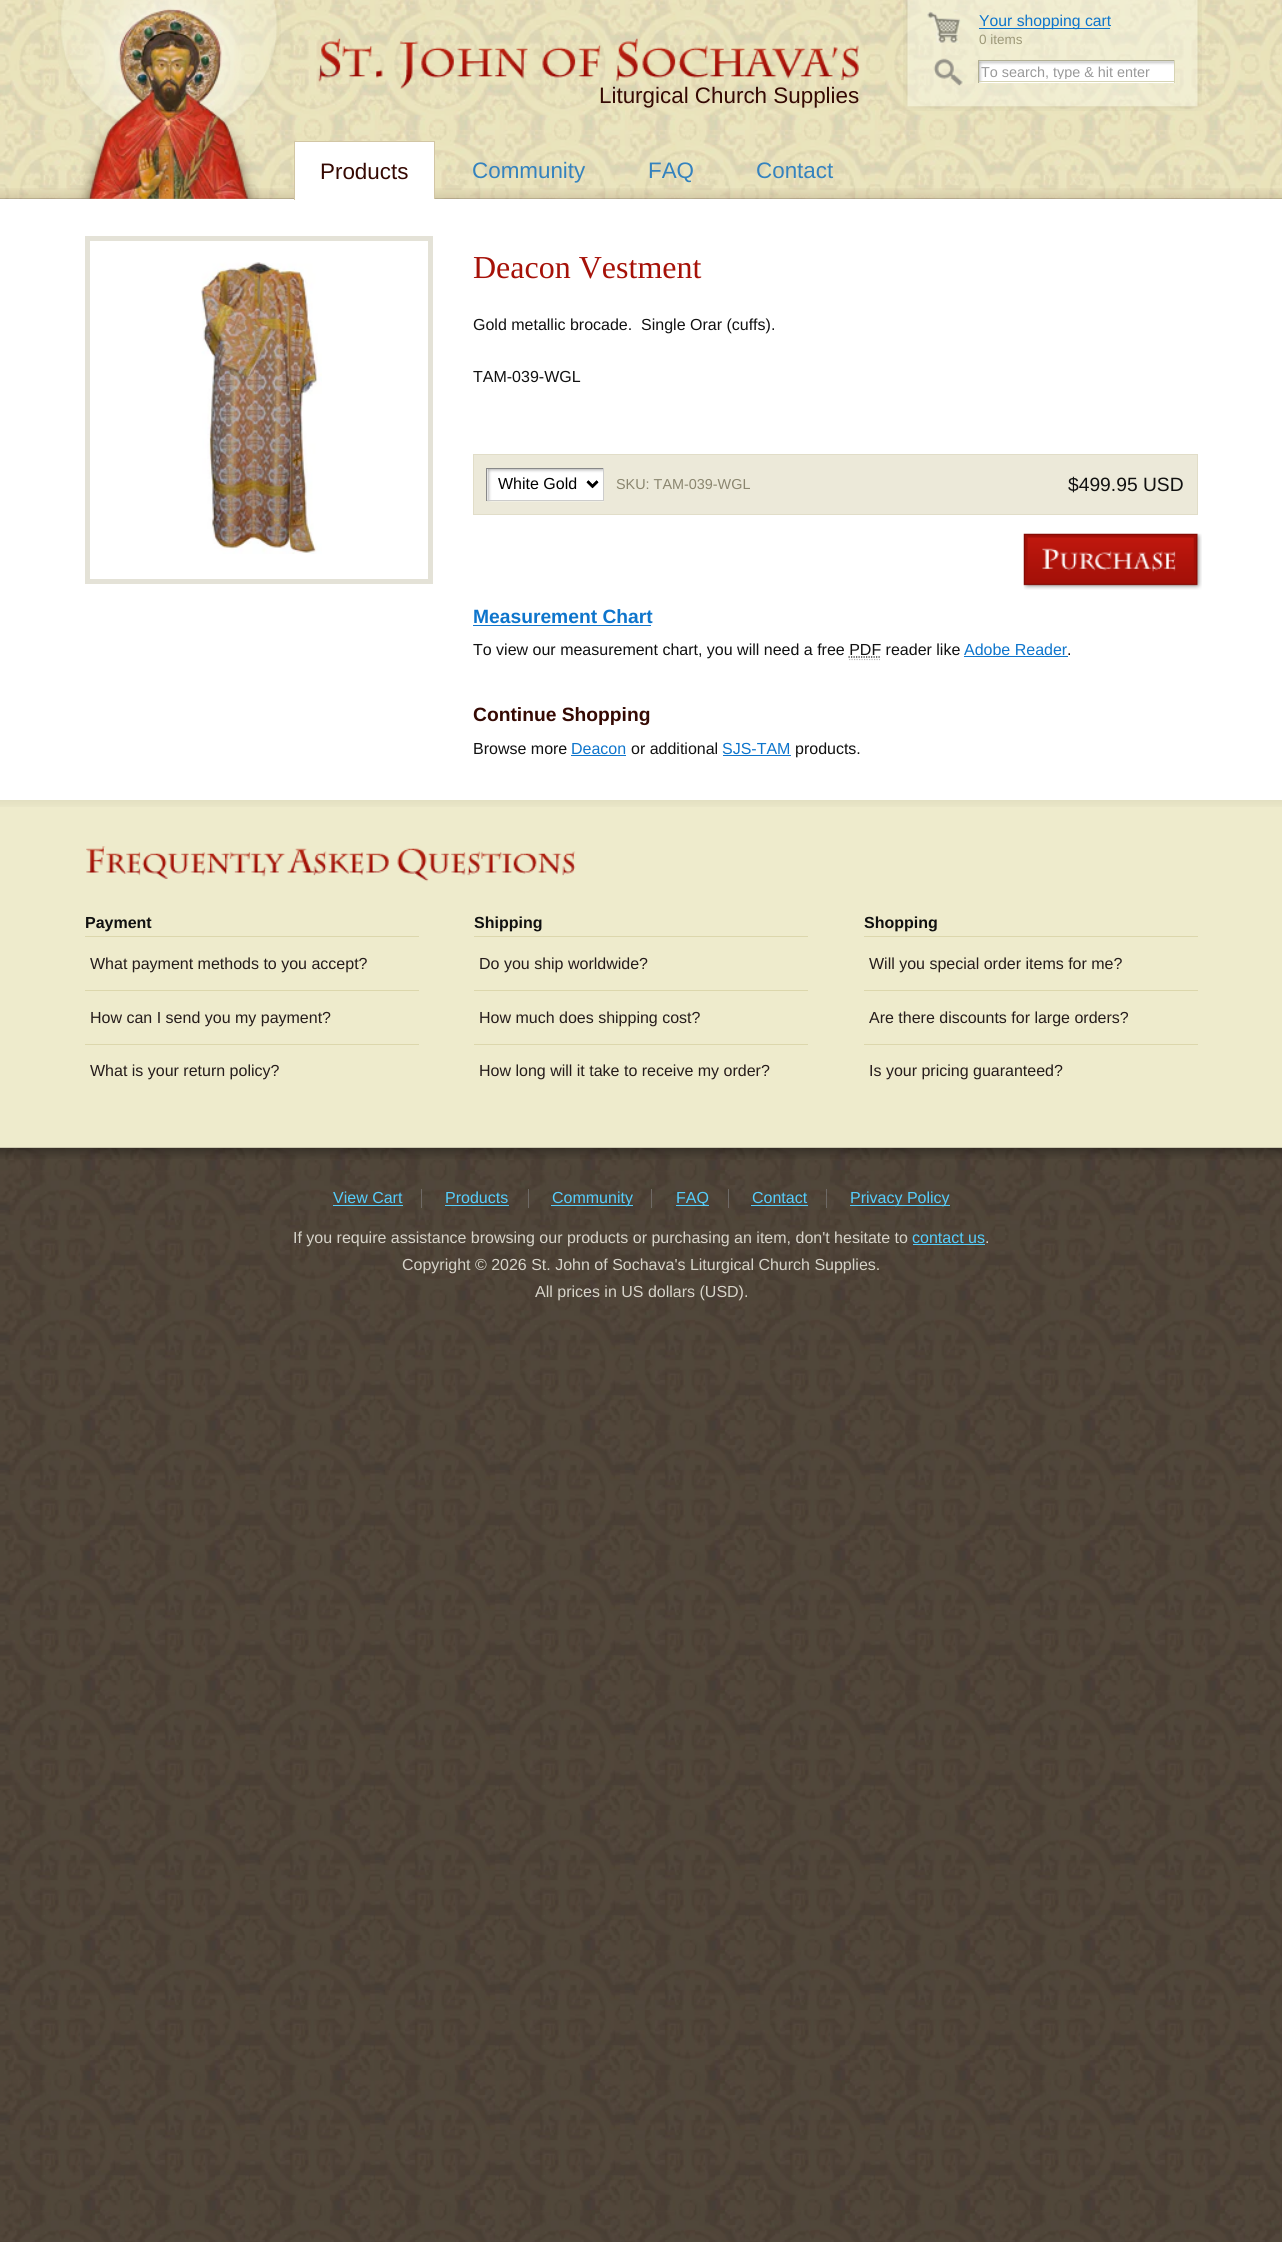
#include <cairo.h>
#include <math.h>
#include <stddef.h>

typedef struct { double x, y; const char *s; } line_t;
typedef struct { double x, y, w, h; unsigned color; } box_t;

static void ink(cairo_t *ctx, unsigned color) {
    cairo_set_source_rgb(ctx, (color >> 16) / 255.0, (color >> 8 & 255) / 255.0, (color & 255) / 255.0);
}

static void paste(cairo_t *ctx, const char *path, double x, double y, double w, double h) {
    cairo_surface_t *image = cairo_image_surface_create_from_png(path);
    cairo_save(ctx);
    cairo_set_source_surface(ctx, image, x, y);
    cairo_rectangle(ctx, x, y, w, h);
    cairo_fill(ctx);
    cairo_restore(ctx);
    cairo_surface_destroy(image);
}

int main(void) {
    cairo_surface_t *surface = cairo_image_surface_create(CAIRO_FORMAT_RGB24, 1282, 2242);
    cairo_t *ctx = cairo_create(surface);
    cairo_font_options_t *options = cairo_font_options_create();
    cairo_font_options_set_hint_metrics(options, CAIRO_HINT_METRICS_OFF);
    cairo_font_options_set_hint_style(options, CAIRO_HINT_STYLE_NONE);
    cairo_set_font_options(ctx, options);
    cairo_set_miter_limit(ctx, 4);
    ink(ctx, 0xFFFFFF);
    cairo_paint(ctx);
    paste(ctx, "media/1.png", 0, 198, 1282, 2044);
    paste(ctx, "media/2.png", 0, 0, 1282, 199);
    paste(ctx, "media/9.png", 0, 188, 1282, 11);
    paste(ctx, "media/3.png", 58, 0, 223, 199);
    cairo_select_font_face(ctx, "Liberation Sans", CAIRO_FONT_SLANT_NORMAL, CAIRO_FONT_WEIGHT_NORMAL);
    cairo_set_font_size(ctx, 22.4);
    ink(ctx, 0x350903);
    cairo_move_to(ctx, 599, 103);
    cairo_show_text(ctx, "Liturgical Church Supplies");
    paste(ctx, "media/4.png", 318, 38, 541, 51);
    paste(ctx, "media/5.png", 903, 0, 299, 111);
    paste(ctx, "media/6.png", 927, 10, 34, 33);
    ink(ctx, 0x0E75CC);
    cairo_rectangle(ctx, 979, 28, 131, 1);
    cairo_fill(ctx);
    cairo_set_font_size(ctx, 15.75);
    cairo_move_to(ctx, 979, 26);
    cairo_show_text(ctx, "Your shopping cart");
    cairo_set_font_size(ctx, 13.5);
    ink(ctx, 0x9D9877);
    cairo_move_to(ctx, 979, 44);
    cairo_show_text(ctx, "0 items");
    paste(ctx, "media/7.png", 933, 58, 30, 28);
    ink(ctx, 0xFFFFFF);
    cairo_rectangle(ctx, 979, 61, 195, 22);
    cairo_fill(ctx);
    paste(ctx, "media/8.png", 979, 61, 195, 22);
    {
        static const box_t items[] = {
            {978, 60, 197, 1, 0xB1AF92},
            {1174, 60, 1, 23, 0xD6D4B4},
            {978, 81, 197, 1, 0xD6D4B4},
            {978, 60, 1, 23, 0xB1AF92},
        };
        for (size_t i = 0; i < sizeof items / sizeof *items; i++) {
            ink(ctx, items[i].color);
            cairo_rectangle(ctx, items[i].x, items[i].y, items[i].w, items[i].h);
            cairo_fill(ctx);
        }
    }
    cairo_save(ctx);
    cairo_rectangle(ctx, 981, 64, 190, 15);
    cairo_clip(ctx);
    cairo_set_font_size(ctx, 14.4);
    ink(ctx, 0x999999);
    cairo_move_to(ctx, 981, 77);
    cairo_show_text(ctx, "To search, type & hit enter");
    cairo_restore(ctx);
    {
        static const box_t items[] = {
            {295, 142, 139, 57, 0xFFFFFF},
            {294, 141, 141, 1, 0xD2C6A4},
            {0, 199, 1282, 601, 0xFFFFFF},
            {434, 141, 1, 59, 0xD2C6A4},
            {434, 199, 1, 1, 0xFFFFFF},
            {294, 141, 1, 59, 0xD2C6A4},
        };
        for (size_t i = 0; i < sizeof items / sizeof *items; i++) {
            ink(ctx, items[i].color);
            cairo_rectangle(ctx, items[i].x, items[i].y, items[i].w, items[i].h);
            cairo_fill(ctx);
        }
    }
    cairo_set_font_size(ctx, 22.4);
    ink(ctx, 0x350903);
    cairo_move_to(ctx, 320, 179);
    cairo_show_text(ctx, "Products");
    ink(ctx, 0x3482BE);
    {
        static const line_t items[] = {
            {472, 178, "Community"},
            {648, 178, "FAQ"},
            {756, 178, "Contact"},
        };
        for (size_t i = 0; i < sizeof items / sizeof *items; i++) {
            cairo_move_to(ctx, items[i].x, items[i].y);
            cairo_show_text(ctx, items[i].s);
        }
    }
    cairo_rectangle(ctx, 87.5, 238.5, 343, 343);
    ink(ctx, 0xE4E2D7);
    cairo_set_line_width(ctx, 5);
    cairo_stroke(ctx);
    paste(ctx, "media/10.png", 201, 262, 121, 292);
    cairo_select_font_face(ctx, "Liberation Serif", CAIRO_FONT_SLANT_NORMAL, CAIRO_FONT_WEIGHT_NORMAL);
    cairo_set_font_size(ctx, 32);
    ink(ctx, 0xA61108);
    cairo_move_to(ctx, 473, 278);
    cairo_show_text(ctx, "Deacon Vestment");
    cairo_select_font_face(ctx, "Liberation Sans", CAIRO_FONT_SLANT_NORMAL, CAIRO_FONT_WEIGHT_NORMAL);
    cairo_set_font_size(ctx, 16);
    ink(ctx, 0x111111);
    cairo_move_to(ctx, 473, 330);
    cairo_show_text(ctx, "Gold metallic brocade.  Single Orar (cuffs).");
    cairo_move_to(ctx, 473, 382);
    cairo_show_text(ctx, "TAM-039-WGL");
    ink(ctx, 0xECE9D9);
    cairo_rectangle(ctx, 473.5, 454.5, 724, 60);
    cairo_fill_preserve(ctx);
    ink(ctx, 0xE1DDC8);
    cairo_set_line_width(ctx, 1);
    cairo_stroke(ctx);
    ink(ctx, 0xFFFFFF);
    cairo_rectangle(ctx, 487, 469, 1, 31);
    cairo_fill(ctx);
    paste(ctx, "media/11.png", 487, 469, 117, 33);
    {
        static const box_t items[] = {
            {486, 468, 118, 1, 0x888888},
            {603, 468, 1, 33, 0xCCCCCC},
            {486, 500, 118, 1, 0xCCCCCC},
            {486, 468, 1, 33, 0x888888},
        };
        for (size_t i = 0; i < sizeof items / sizeof *items; i++) {
            ink(ctx, items[i].color);
            cairo_rectangle(ctx, items[i].x, items[i].y, items[i].w, items[i].h);
            cairo_fill(ctx);
        }
    }
    cairo_new_path(ctx);
    cairo_move_to(ctx, 587.5, 481.5);
    cairo_line_to(ctx, 592.5, 486.5);
    cairo_line_to(ctx, 597.5, 481.5);
    ink(ctx, 0x000000);
    cairo_set_line_width(ctx, 2.5);
    cairo_stroke(ctx);
    cairo_move_to(ctx, 498, 489);
    cairo_show_text(ctx, "White Gold");
    cairo_set_font_size(ctx, 14.4);
    ink(ctx, 0x8B866F);
    cairo_move_to(ctx, 616, 489);
    cairo_show_text(ctx, "SKU: TAM-039-WGL");
    cairo_set_font_size(ctx, 19.25);
    ink(ctx, 0x111111);
    cairo_move_to(ctx, 1068, 491);
    cairo_show_text(ctx, "$499.95 USD");
    paste(ctx, "media/12.png", 1023, 533, 179, 57);
    cairo_select_font_face(ctx, "Liberation Sans", CAIRO_FONT_SLANT_NORMAL, CAIRO_FONT_WEIGHT_BOLD);
    ink(ctx, 0x0E75CC);
    cairo_move_to(ctx, 473, 623);
    cairo_show_text(ctx, "Measurement Chart");
    cairo_rectangle(ctx, 473, 625, 178, 1);
    cairo_fill(ctx);
    cairo_select_font_face(ctx, "Liberation Sans", CAIRO_FONT_SLANT_NORMAL, CAIRO_FONT_WEIGHT_NORMAL);
    cairo_set_font_size(ctx, 16);
    ink(ctx, 0x111111);
    cairo_move_to(ctx, 473, 655);
    cairo_show_text(ctx, "To view our measurement chart, you will need a free PDF reader like");
    ink(ctx, 0x0E75CC);
    cairo_move_to(ctx, 964, 655);
    cairo_show_text(ctx, "Adobe Reader");
    cairo_rectangle(ctx, 964, 656, 104, 1);
    cairo_fill(ctx);
    ink(ctx, 0x111111);
    cairo_move_to(ctx, 1067, 655);
    cairo_show_text(ctx, ".");
    cairo_new_path(ctx);
    cairo_move_to(ctx, 848.5, 657);
    cairo_line_to(ctx, 880.5, 657);
    cairo_set_line_width(ctx, 1.2);
    cairo_set_dash(ctx, (double[]){1.25, 1.25}, 2, 0);
    cairo_stroke(ctx);
    cairo_new_path(ctx);
    cairo_move_to(ctx, 849, 659.5);
    cairo_line_to(ctx, 880, 659.5);
    ink(ctx, 0xBBBBBB);
    cairo_stroke(ctx);
    cairo_select_font_face(ctx, "Liberation Sans", CAIRO_FONT_SLANT_NORMAL, CAIRO_FONT_WEIGHT_BOLD);
    cairo_set_font_size(ctx, 19.25);
    ink(ctx, 0x350903);
    cairo_move_to(ctx, 473, 721);
    cairo_show_text(ctx, "Continue Shopping");
    cairo_select_font_face(ctx, "Liberation Sans", CAIRO_FONT_SLANT_NORMAL, CAIRO_FONT_WEIGHT_NORMAL);
    cairo_set_font_size(ctx, 16);
    ink(ctx, 0x111111);
    cairo_move_to(ctx, 473, 754);
    cairo_show_text(ctx, "Browse more");
    ink(ctx, 0x0E75CC);
    cairo_move_to(ctx, 571, 754);
    cairo_show_text(ctx, "Deacon");
    cairo_rectangle(ctx, 571, 755, 55, 1);
    cairo_fill(ctx);
    ink(ctx, 0x111111);
    cairo_move_to(ctx, 631, 754);
    cairo_show_text(ctx, "or additional");
    ink(ctx, 0x0E75CC);
    cairo_move_to(ctx, 722, 754);
    cairo_show_text(ctx, "SJS-TAM");
    cairo_rectangle(ctx, 723, 755, 68, 1);
    cairo_fill(ctx);
    ink(ctx, 0x111111);
    cairo_move_to(ctx, 795, 754);
    cairo_show_text(ctx, "products.");
    ink(ctx, 0xEEEBCC);
    cairo_rectangle(ctx, 0, 807, 1282, 341);
    cairo_fill(ctx);
    paste(ctx, "media/13.png", 0, 800, 1282, 7);
    paste(ctx, "media/14.png", 86, 846, 490, 36);
    cairo_select_font_face(ctx, "Liberation Sans", CAIRO_FONT_SLANT_NORMAL, CAIRO_FONT_WEIGHT_BOLD);
    ink(ctx, 0x111111);
    cairo_move_to(ctx, 85, 928);
    cairo_show_text(ctx, "Payment");
    ink(ctx, 0xDCD7AC);
    cairo_rectangle(ctx, 85, 936, 334, 1);
    cairo_fill(ctx);
    cairo_select_font_face(ctx, "Liberation Sans", CAIRO_FONT_SLANT_NORMAL, CAIRO_FONT_WEIGHT_NORMAL);
    ink(ctx, 0x251C1B);
    cairo_move_to(ctx, 90, 969);
    cairo_show_text(ctx, "What payment methods to you accept?");
    ink(ctx, 0xDCD7AC);
    cairo_rectangle(ctx, 85, 990, 334, 1);
    cairo_fill(ctx);
    ink(ctx, 0x251C1B);
    cairo_move_to(ctx, 90, 1023);
    cairo_show_text(ctx, "How can I send you my payment?");
    ink(ctx, 0xDCD7AC);
    cairo_rectangle(ctx, 85, 1044, 334, 1);
    cairo_fill(ctx);
    ink(ctx, 0x251C1B);
    cairo_move_to(ctx, 90, 1076);
    cairo_show_text(ctx, "What is your return policy?");
    cairo_select_font_face(ctx, "Liberation Sans", CAIRO_FONT_SLANT_NORMAL, CAIRO_FONT_WEIGHT_BOLD);
    ink(ctx, 0x111111);
    cairo_move_to(ctx, 474, 928);
    cairo_show_text(ctx, "Shipping");
    ink(ctx, 0xDCD7AC);
    cairo_rectangle(ctx, 474, 936, 334, 1);
    cairo_fill(ctx);
    cairo_select_font_face(ctx, "Liberation Sans", CAIRO_FONT_SLANT_NORMAL, CAIRO_FONT_WEIGHT_NORMAL);
    ink(ctx, 0x251C1B);
    cairo_move_to(ctx, 479, 969);
    cairo_show_text(ctx, "Do you ship worldwide?");
    ink(ctx, 0xDCD7AC);
    cairo_rectangle(ctx, 474, 990, 334, 1);
    cairo_fill(ctx);
    ink(ctx, 0x251C1B);
    cairo_move_to(ctx, 479, 1023);
    cairo_show_text(ctx, "How much does shipping cost?");
    ink(ctx, 0xDCD7AC);
    cairo_rectangle(ctx, 474, 1044, 334, 1);
    cairo_fill(ctx);
    ink(ctx, 0x251C1B);
    cairo_move_to(ctx, 479, 1076);
    cairo_show_text(ctx, "How long will it take to receive my order?");
    cairo_select_font_face(ctx, "Liberation Sans", CAIRO_FONT_SLANT_NORMAL, CAIRO_FONT_WEIGHT_BOLD);
    ink(ctx, 0x111111);
    cairo_move_to(ctx, 864, 928);
    cairo_show_text(ctx, "Shopping");
    ink(ctx, 0xDCD7AC);
    cairo_rectangle(ctx, 864, 936, 334, 1);
    cairo_fill(ctx);
    cairo_select_font_face(ctx, "Liberation Sans", CAIRO_FONT_SLANT_NORMAL, CAIRO_FONT_WEIGHT_NORMAL);
    ink(ctx, 0x251C1B);
    cairo_move_to(ctx, 869, 969);
    cairo_show_text(ctx, "Will you special order items for me?");
    ink(ctx, 0xDCD7AC);
    cairo_rectangle(ctx, 864, 990, 334, 1);
    cairo_fill(ctx);
    ink(ctx, 0x251C1B);
    cairo_move_to(ctx, 869, 1023);
    cairo_show_text(ctx, "Are there discounts for large orders?");
    ink(ctx, 0xDCD7AC);
    cairo_rectangle(ctx, 864, 1044, 334, 1);
    cairo_fill(ctx);
    ink(ctx, 0x251C1B);
    cairo_move_to(ctx, 869, 1076);
    cairo_show_text(ctx, "Is your pricing guaranteed?");
    paste(ctx, "media/15.png", 0, 1147, 1282, 12);
    ink(ctx, 0x55CEFC);
    cairo_move_to(ctx, 333, 1203);
    cairo_show_text(ctx, "View Cart");
    ink(ctx, 0x6E6965);
    cairo_rectangle(ctx, 421, 1189, 1, 19);
    cairo_fill(ctx);
    ink(ctx, 0x55CEFC);
    cairo_rectangle(ctx, 333, 1205, 70, 1);
    cairo_fill(ctx);
    cairo_move_to(ctx, 445, 1203);
    cairo_show_text(ctx, "Products");
    {
        static const box_t items[] = {
            {528, 1189, 1, 19, 0x6E6965},
            {445, 1205, 64, 1, 0x55CEFC},
            {551, 1205, 82, 1, 0x55CEFC},
        };
        for (size_t i = 0; i < sizeof items / sizeof *items; i++) {
            ink(ctx, items[i].color);
            cairo_rectangle(ctx, items[i].x, items[i].y, items[i].w, items[i].h);
            cairo_fill(ctx);
        }
    }
    cairo_move_to(ctx, 552, 1203);
    cairo_show_text(ctx, "Community");
    ink(ctx, 0x6E6965);
    cairo_rectangle(ctx, 651, 1189, 1, 19);
    cairo_fill(ctx);
    ink(ctx, 0x55CEFC);
    cairo_rectangle(ctx, 676, 1205, 33, 1);
    cairo_fill(ctx);
    cairo_move_to(ctx, 676, 1203);
    cairo_show_text(ctx, "FAQ");
    ink(ctx, 0x6E6965);
    cairo_rectangle(ctx, 728, 1189, 1, 19);
    cairo_fill(ctx);
    ink(ctx, 0x55CEFC);
    cairo_move_to(ctx, 752, 1203);
    cairo_show_text(ctx, "Contact");
    {
        static const box_t items[] = {
            {826, 1189, 1, 19, 0x6E6965},
            {751, 1205, 57, 1, 0x55CEFC},
            {850, 1205, 100, 1, 0x55CEFC},
        };
        for (size_t i = 0; i < sizeof items / sizeof *items; i++) {
            ink(ctx, items[i].color);
            cairo_rectangle(ctx, items[i].x, items[i].y, items[i].w, items[i].h);
            cairo_fill(ctx);
        }
    }
    cairo_move_to(ctx, 850, 1203);
    cairo_show_text(ctx, "Privacy Policy");
    ink(ctx, 0xD7D4CA);
    cairo_move_to(ctx, 293, 1243);
    cairo_show_text(ctx, "If you require assistance browsing our products or purchasing an item, don't hesitate to");
    ink(ctx, 0x55CEFC);
    cairo_move_to(ctx, 912, 1243);
    cairo_show_text(ctx, "contact us");
    cairo_rectangle(ctx, 913, 1244, 72, 1);
    cairo_fill(ctx);
    ink(ctx, 0xD7D4CA);
    {
        static const line_t items[] = {
            {985, 1243, "."},
            {402, 1270, "Copyright © 2026 St. John of Sochava's Liturgical Church Supplies."},
            {535, 1297, "All prices in US dollars (USD)."},
        };
        for (size_t i = 0; i < sizeof items / sizeof *items; i++) {
            cairo_move_to(ctx, items[i].x, items[i].y);
            cairo_show_text(ctx, items[i].s);
        }
    }
    cairo_surface_write_to_png(surface, "image.png");
    cairo_font_options_destroy(options);
    cairo_destroy(ctx);
    cairo_surface_destroy(surface);
    return 0;
}
